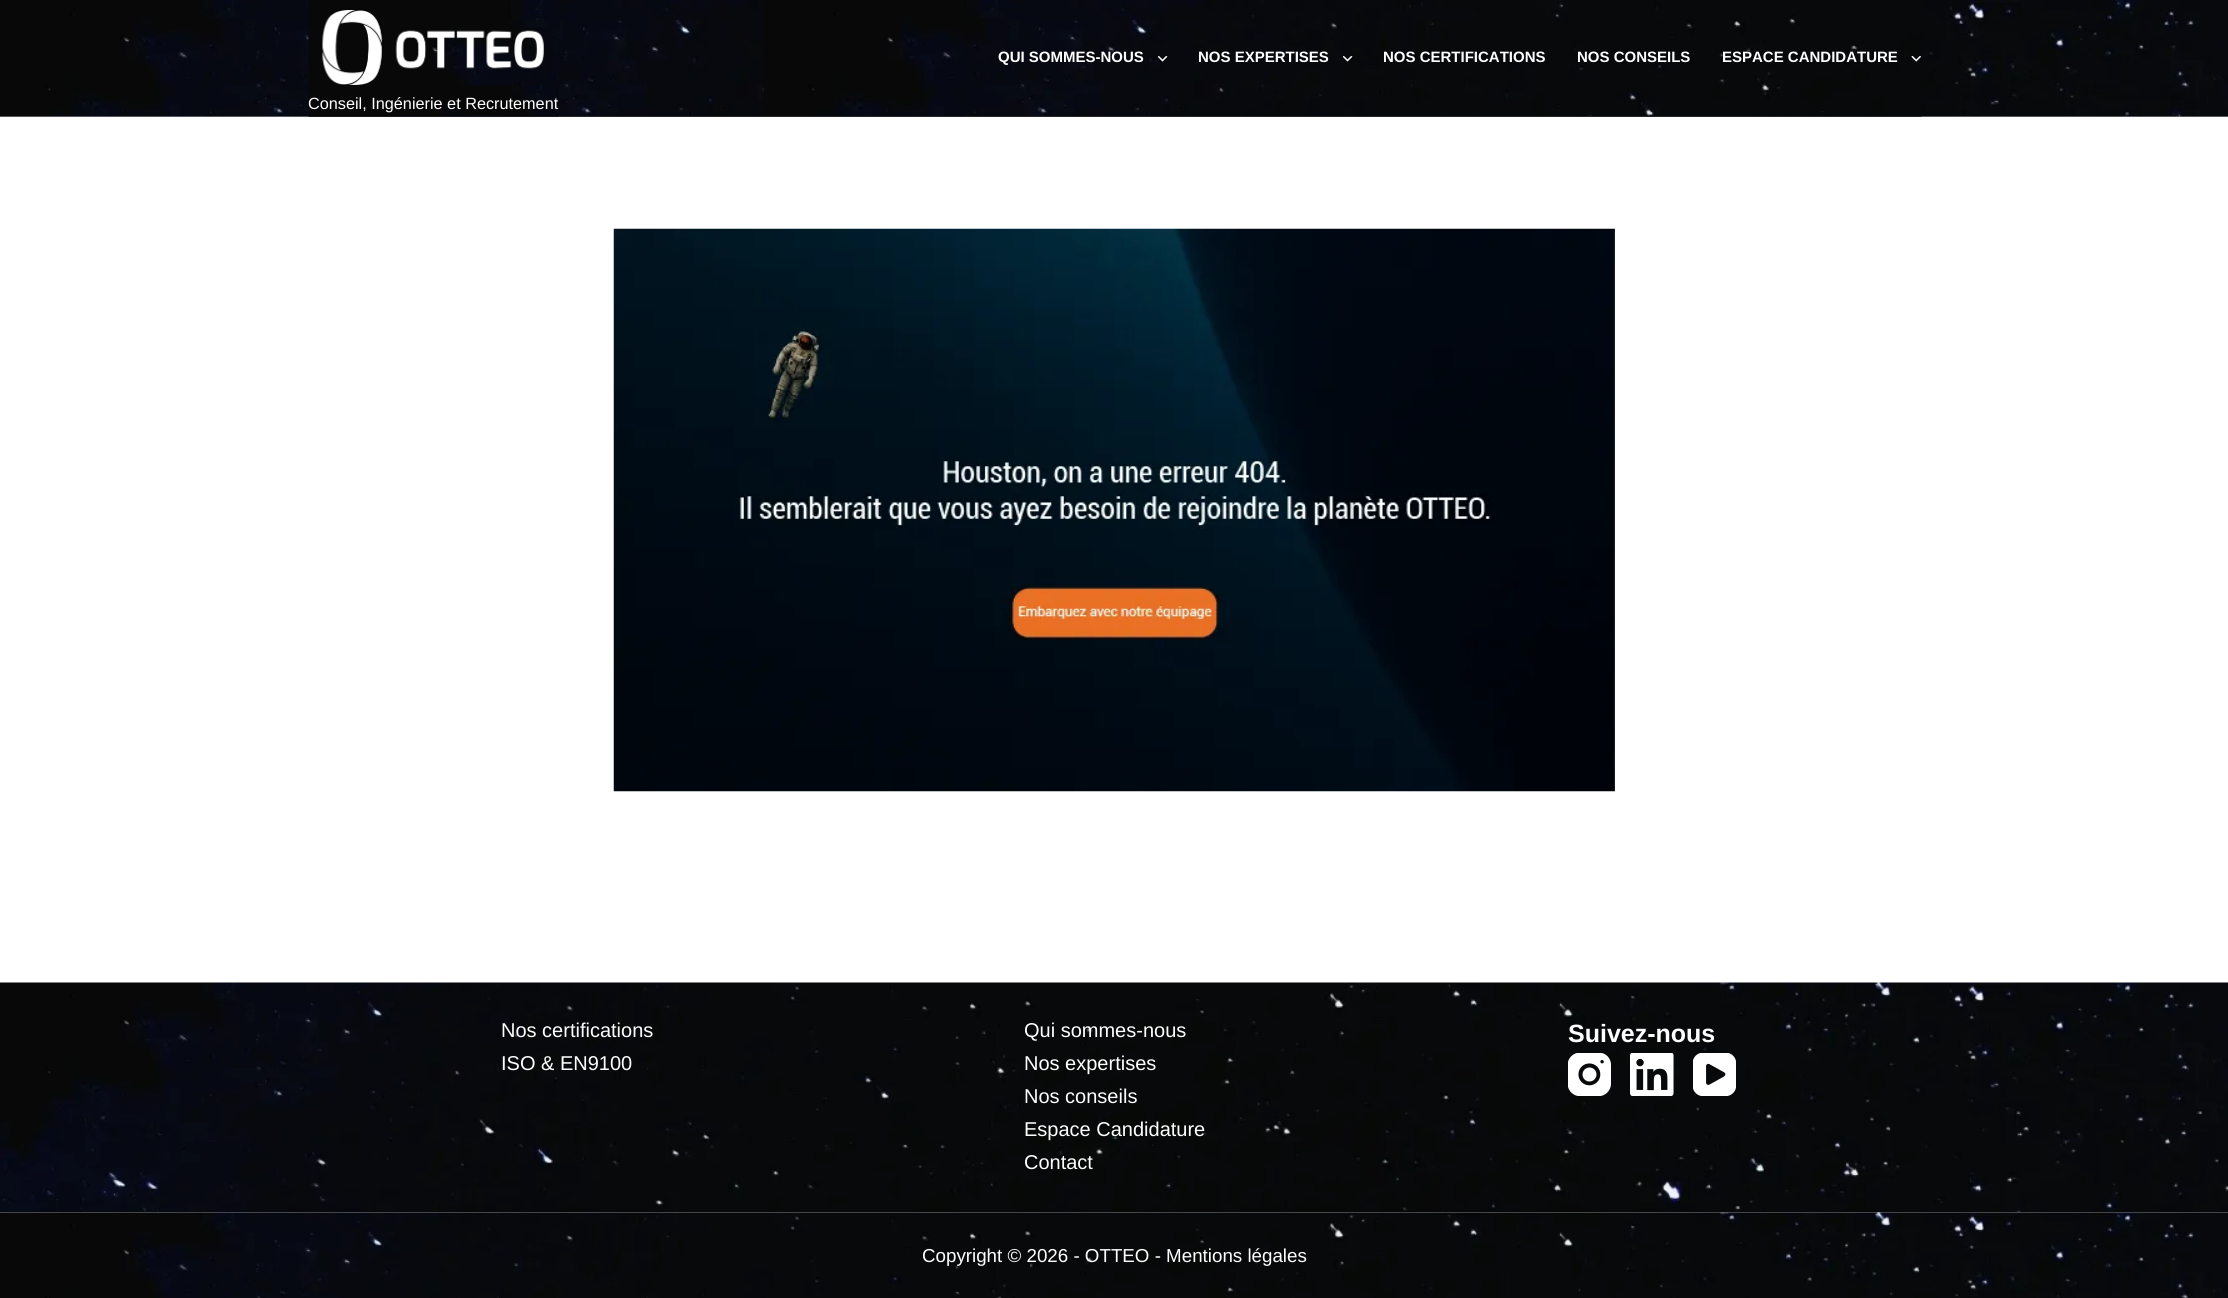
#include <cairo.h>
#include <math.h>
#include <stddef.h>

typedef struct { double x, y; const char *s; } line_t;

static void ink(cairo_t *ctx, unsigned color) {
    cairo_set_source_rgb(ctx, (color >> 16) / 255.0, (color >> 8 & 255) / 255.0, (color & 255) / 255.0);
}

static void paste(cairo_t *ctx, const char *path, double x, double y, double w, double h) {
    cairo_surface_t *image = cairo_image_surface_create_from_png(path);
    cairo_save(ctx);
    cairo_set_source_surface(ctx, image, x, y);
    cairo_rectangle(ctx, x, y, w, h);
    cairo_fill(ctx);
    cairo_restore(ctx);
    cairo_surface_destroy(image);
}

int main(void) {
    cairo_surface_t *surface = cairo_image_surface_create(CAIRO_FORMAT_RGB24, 2228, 1298);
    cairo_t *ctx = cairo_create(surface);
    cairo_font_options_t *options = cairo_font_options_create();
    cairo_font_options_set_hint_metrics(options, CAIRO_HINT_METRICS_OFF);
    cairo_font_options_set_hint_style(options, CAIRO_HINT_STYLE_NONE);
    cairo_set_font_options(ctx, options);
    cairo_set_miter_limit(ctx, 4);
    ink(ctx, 0xFFFFFF);
    cairo_paint(ctx);
    paste(ctx, "media/1.png", 0, 116, 2228, 1);
    paste(ctx, "media/2.png", 0, 116, 2228, 1);
    paste(ctx, "media/3.png", 0, 116, 2228, 1);
    paste(ctx, "media/4.png", 0, 0, 2228, 117);
    paste(ctx, "media/5.png", 308, 0, 1614, 117);
    paste(ctx, "media/11.png", 308, 3, 456, 114);
    paste(ctx, "media/12.png", 308, 36, 456, 81);
    paste(ctx, "media/6.png", 763, 0, 1159, 117);
    paste(ctx, "media/7.png", 763, 88, 1159, 29);
    cairo_select_font_face(ctx, "Liberation Sans", CAIRO_FONT_SLANT_NORMAL, CAIRO_FONT_WEIGHT_BOLD);
    cairo_set_font_size(ctx, 15);
    ink(ctx, 0xFFFFFF);
    cairo_move_to(ctx, 998, 62);
    cairo_show_text(ctx, "QUI SOMMES-NOUS");
    paste(ctx, "media/8.png", 1158, 56, 10, 6);
    cairo_move_to(ctx, 1198, 62);
    cairo_show_text(ctx, "NOS EXPERTISES");
    paste(ctx, "media/9.png", 1343, 56, 10, 6);
    {
        static const line_t items[] = {
            {1383, 62, "NOS CERTIFICATIONS"},
            {1577, 62, "NOS CONSEILS"},
            {1722, 62, "ESPACE CANDIDATURE"},
        };
        for (size_t i = 0; i < sizeof items / sizeof *items; i++) {
            cairo_move_to(ctx, items[i].x, items[i].y);
            cairo_show_text(ctx, items[i].s);
        }
    }
    paste(ctx, "media/10.png", 1911, 56, 10, 6);
    paste(ctx, "media/13.png", 308, 10, 251, 107);
    paste(ctx, "media/14.png", 322, 10, 222, 75);
    paste(ctx, "media/15.png", 308, 85, 251, 32);
    cairo_select_font_face(ctx, "Liberation Sans", CAIRO_FONT_SLANT_NORMAL, CAIRO_FONT_WEIGHT_NORMAL);
    cairo_set_font_size(ctx, 16.25);
    cairo_move_to(ctx, 308, 109);
    cairo_show_text(ctx, "Conseil, Ingénierie et Recrutement");
    paste(ctx, "media/16.png", 613, 228, 1002, 564);
    paste(ctx, "media/17.png", 0, 982, 2228, 231);
    cairo_set_font_size(ctx, 20);
    {
        static const line_t items[] = {
            {501, 1037, "Nos certifications"},
            {501, 1070, "ISO & EN9100"},
            {1024, 1037, "Qui sommes-nous"},
            {1024, 1070, "Nos expertises"},
            {1024, 1103, "Nos conseils"},
            {1024, 1136, "Espace Candidature"},
            {1024, 1169, "Contact"},
        };
        for (size_t i = 0; i < sizeof items / sizeof *items; i++) {
            cairo_move_to(ctx, items[i].x, items[i].y);
            cairo_show_text(ctx, items[i].s);
        }
    }
    cairo_select_font_face(ctx, "Liberation Sans", CAIRO_FONT_SLANT_NORMAL, CAIRO_FONT_WEIGHT_BOLD);
    cairo_set_font_size(ctx, 25);
    cairo_move_to(ctx, 1568, 1042);
    cairo_show_text(ctx, "Suivez-nous");
    paste(ctx, "media/18.png", 1568, 1053, 43, 43);
    paste(ctx, "media/19.png", 1630, 1053, 44, 43);
    paste(ctx, "media/20.png", 1693, 1053, 43, 43);
    paste(ctx, "media/21.png", 0, 1212, 2228, 86);
    cairo_select_font_face(ctx, "Liberation Sans", CAIRO_FONT_SLANT_NORMAL, CAIRO_FONT_WEIGHT_NORMAL);
    cairo_set_font_size(ctx, 18.75);
    cairo_move_to(ctx, 922, 1262);
    cairo_show_text(ctx, "Copyright © 2026 - OTTEO - Mentions légales");
    cairo_surface_write_to_png(surface, "image.png");
    cairo_font_options_destroy(options);
    cairo_destroy(ctx);
    cairo_surface_destroy(surface);
    return 0;
}
